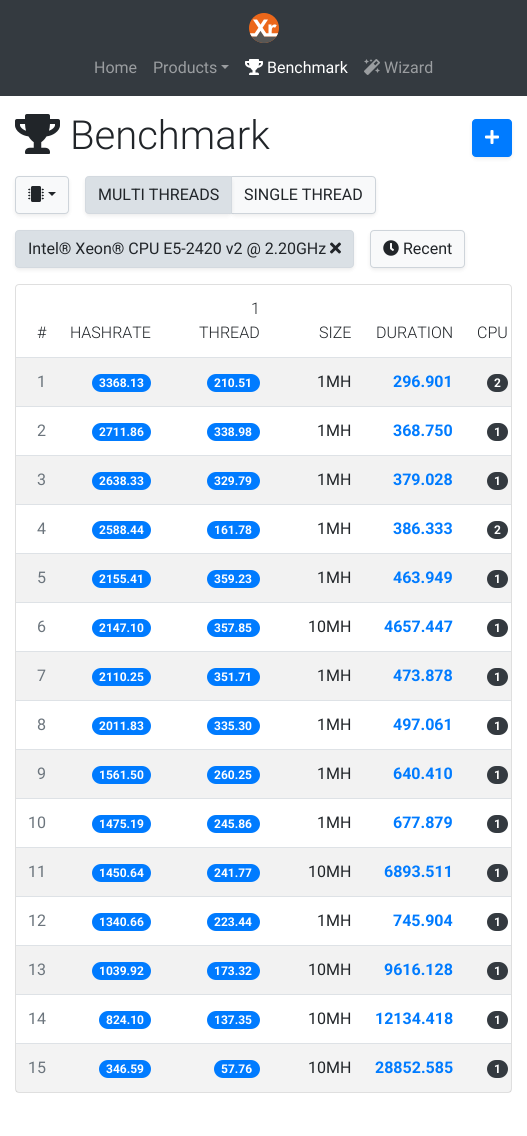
#include <cairo.h>
#include <math.h>
#include <stddef.h>

typedef struct { double x, y; const char *s; } line_t;

static void ink(cairo_t *ctx, unsigned color) {
    cairo_set_source_rgb(ctx, (color >> 16) / 255.0, (color >> 8 & 255) / 255.0, (color & 255) / 255.0);
}

static void round_path(cairo_t *ctx, double x, double y, double w, double h, double r) {
    cairo_new_sub_path(ctx);
    cairo_arc(ctx, x + w - r, y + h - r, r, 0, M_PI / 2);
    cairo_arc(ctx, x + r, y + h - r, r, M_PI / 2, M_PI);
    cairo_arc(ctx, x + r, y + r, r, M_PI, 1.5 * M_PI);
    cairo_arc(ctx, x + w - r, y + r, r, 1.5 * M_PI, 2 * M_PI);
    cairo_close_path(ctx);
}

static void blur_box(cairo_t *ctx, double x, double y, double w, double h, double r, double blur, double alpha) {
    cairo_push_group_with_content(ctx, CAIRO_CONTENT_ALPHA);
    cairo_set_operator(ctx, CAIRO_OPERATOR_SOURCE);
    for (int i = 15; i >= -15 && fmin(w, h) + blur * i / 3 > 0; i -= 2) {
        double e = blur * i / 6;
        cairo_set_source_rgba(ctx, 0, 0, 0, alpha * erfc((i - 1) / 8.5) / 2);
        round_path(ctx, x - e, y - e, w + 2 * e, h + 2 * e, fmax(0, fmin(r + e + blur * .6, fmin(w, h) / 2 + e)));
        cairo_fill(ctx);
    }
    cairo_pattern_t *soft = cairo_pop_group(ctx);
    cairo_mask(ctx, soft);
    cairo_pattern_destroy(soft);
}

static void paste(cairo_t *ctx, const char *path, double x, double y, double w, double h) {
    cairo_surface_t *image = cairo_image_surface_create_from_png(path);
    cairo_save(ctx);
    cairo_set_source_surface(ctx, image, x, y);
    cairo_rectangle(ctx, x, y, w, h);
    cairo_fill(ctx);
    cairo_restore(ctx);
    cairo_surface_destroy(image);
}

int main(void) {
    cairo_surface_t *surface = cairo_image_surface_create(CAIRO_FORMAT_RGB24, 527, 1136);
    cairo_t *ctx = cairo_create(surface);
    cairo_font_options_t *options = cairo_font_options_create();
    cairo_font_options_set_hint_metrics(options, CAIRO_HINT_METRICS_OFF);
    cairo_font_options_set_hint_style(options, CAIRO_HINT_STYLE_NONE);
    cairo_set_font_options(ctx, options);
    cairo_set_miter_limit(ctx, 4);
    ink(ctx, 0xFFFFFF);
    cairo_paint(ctx);
    ink(ctx, 0x343A40);
    cairo_rectangle(ctx, 0, 0, 527, 96);
    cairo_fill(ctx);
    paste(ctx, "media/1.png", 249, 13, 30, 30);
    cairo_select_font_face(ctx, "Roboto", CAIRO_FONT_SLANT_NORMAL, CAIRO_FONT_WEIGHT_NORMAL);
    cairo_set_font_size(ctx, 16);
    ink(ctx, 0x9A9DA0);
    cairo_move_to(ctx, 94, 73);
    cairo_show_text(ctx, "Home");
    cairo_move_to(ctx, 153, 73);
    cairo_show_text(ctx, "Products");
    cairo_new_path(ctx);
    cairo_move_to(ctx, 221, 65);
    cairo_line_to(ctx, 229, 65);
    cairo_line_to(ctx, 225, 69);
    cairo_close_path(ctx);
    cairo_fill(ctx);
    paste(ctx, "media/2.png", 245, 59, 18, 16);
    ink(ctx, 0xFFFFFF);
    cairo_move_to(ctx, 267, 73);
    cairo_show_text(ctx, "Benchmark");
    paste(ctx, "media/3.png", 364, 59, 16, 16);
    ink(ctx, 0x9A9DA0);
    cairo_move_to(ctx, 384, 73);
    cairo_show_text(ctx, "Wizard");
    paste(ctx, "media/4.png", 15, 114, 45, 40);
    cairo_select_font_face(ctx, "Roboto Light", CAIRO_FONT_SLANT_NORMAL, CAIRO_FONT_WEIGHT_NORMAL);
    cairo_set_font_size(ctx, 40);
    ink(ctx, 0x212529);
    cairo_move_to(ctx, 70, 149);
    cairo_show_text(ctx, "Benchmark");
    ink(ctx, 0x000000);
    blur_box(ctx, 472, 121, 40, 38, 4, 2, 0.07);
    ink(ctx, 0x007BFF);
    round_path(ctx, 472.5, 119.5, 39, 37, 3.5);
    cairo_fill_preserve(ctx);
    cairo_set_line_width(ctx, 1);
    cairo_stroke(ctx);
    paste(ctx, "media/5.png", 485, 130, 14, 14);
    ink(ctx, 0x000000);
    blur_box(ctx, 15, 178, 54, 38, 4, 2, 0.07);
    ink(ctx, 0xF8F9FA);
    round_path(ctx, 15.5, 176.5, 53, 37, 3.5);
    cairo_fill_preserve(ctx);
    ink(ctx, 0xCED4DA);
    cairo_stroke(ctx);
    paste(ctx, "media/6.png", 28, 186, 16, 16);
    ink(ctx, 0x212529);
    cairo_new_path(ctx);
    cairo_move_to(ctx, 48, 192);
    cairo_line_to(ctx, 56, 192);
    cairo_line_to(ctx, 52, 196);
    cairo_close_path(ctx);
    cairo_fill(ctx);
    ink(ctx, 0x000000);
    blur_box(ctx, 231, 178, 145, 38, 4, 2, 0.07);
    ink(ctx, 0xF8F9FA);
    cairo_new_path(ctx);
    cairo_move_to(ctx, 231.5, 176.5);
    cairo_line_to(ctx, 372, 176.5);
    cairo_curve_to(ctx, 374, 176.5, 375.5, 178, 375.5, 180);
    cairo_line_to(ctx, 375.5, 210);
    cairo_curve_to(ctx, 375.5, 212, 374, 213.5, 372, 213.5);
    cairo_line_to(ctx, 231.5, 213.5);
    cairo_close_path(ctx);
    cairo_fill_preserve(ctx);
    ink(ctx, 0xCED4DA);
    cairo_stroke(ctx);
    ink(ctx, 0x000000);
    blur_box(ctx, 85, 178, 147, 38, 4, 2, 0.07);
    ink(ctx, 0xDAE0E5);
    cairo_new_path(ctx);
    cairo_move_to(ctx, 89, 176.5);
    cairo_line_to(ctx, 231.5, 176.5);
    cairo_line_to(ctx, 231.5, 213.5);
    cairo_line_to(ctx, 89, 213.5);
    cairo_curve_to(ctx, 87, 213.5, 85.5, 212, 85.5, 210);
    cairo_line_to(ctx, 85.5, 180);
    cairo_curve_to(ctx, 85.5, 178, 87, 176.5, 89, 176.5);
    cairo_close_path(ctx);
    cairo_fill_preserve(ctx);
    ink(ctx, 0xD3D9DF);
    cairo_stroke(ctx);
    cairo_select_font_face(ctx, "Roboto", CAIRO_FONT_SLANT_NORMAL, CAIRO_FONT_WEIGHT_NORMAL);
    cairo_set_font_size(ctx, 16);
    ink(ctx, 0x212529);
    cairo_move_to(ctx, 98, 200);
    cairo_show_text(ctx, "MULTI THREADS");
    cairo_move_to(ctx, 244, 200);
    cairo_show_text(ctx, "SINGLE THREAD");
    ink(ctx, 0x000000);
    blur_box(ctx, 15, 232, 339, 38, 4, 2, 0.07);
    ink(ctx, 0xDAE0E5);
    round_path(ctx, 15.5, 230.5, 338, 37, 3.5);
    cairo_fill_preserve(ctx);
    ink(ctx, 0xD3D9DF);
    cairo_stroke(ctx);
    ink(ctx, 0x212529);
    cairo_move_to(ctx, 28, 254);
    cairo_show_text(ctx, "Intel® Xeon® CPU E5-2420 v2 @ 2.20GHz");
    paste(ctx, "media/7.png", 330, 242, 11, 12);
    ink(ctx, 0x000000);
    blur_box(ctx, 370, 232, 95, 38, 4, 2, 0.07);
    ink(ctx, 0xF8F9FA);
    round_path(ctx, 370.5, 230.5, 94, 37, 3.5);
    cairo_fill_preserve(ctx);
    ink(ctx, 0xCED4DA);
    cairo_stroke(ctx);
    paste(ctx, "media/8.png", 383, 240, 16, 16);
    ink(ctx, 0x212529);
    cairo_move_to(ctx, 403, 254);
    cairo_show_text(ctx, "Recent");
    round_path(ctx, 15.5, 284.5, 496, 808, 3.5);
    ink(ctx, 0xDFDFDF);
    cairo_stroke(ctx);
    cairo_select_font_face(ctx, "Roboto Light", CAIRO_FONT_SLANT_NORMAL, CAIRO_FONT_WEIGHT_NORMAL);
    ink(ctx, 0x212529);
    {
        static const line_t items[] = {
            {37, 338, "#"},
            {70, 338, "HASHRATE"},
            {251, 314, "1"},
            {199, 338, "THREAD"},
            {319, 338, "SIZE"},
            {376, 338, "DURATION"},
            {477, 338, "CPU"},
        };
        for (size_t i = 0; i < sizeof items / sizeof *items; i++) {
            cairo_move_to(ctx, items[i].x, items[i].y);
            cairo_show_text(ctx, items[i].s);
        }
    }
    ink(ctx, 0xF2F2F2);
    cairo_rectangle(ctx, 16, 358, 495, 48);
    cairo_fill(ctx);
    cairo_select_font_face(ctx, "Roboto", CAIRO_FONT_SLANT_NORMAL, CAIRO_FONT_WEIGHT_NORMAL);
    ink(ctx, 0x6C757D);
    cairo_move_to(ctx, 37, 387);
    cairo_show_text(ctx, "1");
    ink(ctx, 0x007BFF);
    round_path(ctx, 92, 374, 59, 18, 9);
    cairo_fill(ctx);
    cairo_select_font_face(ctx, "Roboto", CAIRO_FONT_SLANT_NORMAL, CAIRO_FONT_WEIGHT_BOLD);
    cairo_set_font_size(ctx, 12);
    ink(ctx, 0xFFFFFF);
    cairo_move_to(ctx, 99, 387);
    cairo_show_text(ctx, "3368.13");
    ink(ctx, 0x007BFF);
    round_path(ctx, 207, 374, 53, 18, 9);
    cairo_fill(ctx);
    ink(ctx, 0xFFFFFF);
    cairo_move_to(ctx, 214, 387);
    cairo_show_text(ctx, "210.51");
    cairo_select_font_face(ctx, "Roboto", CAIRO_FONT_SLANT_NORMAL, CAIRO_FONT_WEIGHT_NORMAL);
    cairo_set_font_size(ctx, 16);
    ink(ctx, 0x212529);
    cairo_move_to(ctx, 317, 387);
    cairo_show_text(ctx, "1MH");
    cairo_select_font_face(ctx, "Roboto", CAIRO_FONT_SLANT_NORMAL, CAIRO_FONT_WEIGHT_BOLD);
    ink(ctx, 0x007BFF);
    cairo_move_to(ctx, 393, 387);
    cairo_show_text(ctx, "296.901");
    ink(ctx, 0xDEE2E6);
    cairo_rectangle(ctx, 16, 357, 495, 1);
    cairo_fill(ctx);
    ink(ctx, 0x343A40);
    round_path(ctx, 487, 374, 21, 18, 9);
    cairo_fill(ctx);
    cairo_set_font_size(ctx, 12);
    ink(ctx, 0xFFFFFF);
    cairo_move_to(ctx, 494, 387);
    cairo_show_text(ctx, "2");
    cairo_select_font_face(ctx, "Roboto", CAIRO_FONT_SLANT_NORMAL, CAIRO_FONT_WEIGHT_NORMAL);
    cairo_set_font_size(ctx, 16);
    ink(ctx, 0x6C757D);
    cairo_move_to(ctx, 37, 436);
    cairo_show_text(ctx, "2");
    ink(ctx, 0x007BFF);
    round_path(ctx, 92, 423, 59, 18, 9);
    cairo_fill(ctx);
    cairo_select_font_face(ctx, "Roboto", CAIRO_FONT_SLANT_NORMAL, CAIRO_FONT_WEIGHT_BOLD);
    cairo_set_font_size(ctx, 12);
    ink(ctx, 0xFFFFFF);
    cairo_move_to(ctx, 99, 436);
    cairo_show_text(ctx, "2711.86");
    ink(ctx, 0x007BFF);
    round_path(ctx, 207, 423, 53, 18, 9);
    cairo_fill(ctx);
    ink(ctx, 0xFFFFFF);
    cairo_move_to(ctx, 214, 436);
    cairo_show_text(ctx, "338.98");
    cairo_select_font_face(ctx, "Roboto", CAIRO_FONT_SLANT_NORMAL, CAIRO_FONT_WEIGHT_NORMAL);
    cairo_set_font_size(ctx, 16);
    ink(ctx, 0x212529);
    cairo_move_to(ctx, 317, 436);
    cairo_show_text(ctx, "1MH");
    cairo_select_font_face(ctx, "Roboto", CAIRO_FONT_SLANT_NORMAL, CAIRO_FONT_WEIGHT_BOLD);
    ink(ctx, 0x007BFF);
    cairo_move_to(ctx, 393, 436);
    cairo_show_text(ctx, "368.750");
    ink(ctx, 0xDEE2E6);
    cairo_rectangle(ctx, 16, 406, 495, 1);
    cairo_fill(ctx);
    ink(ctx, 0x343A40);
    round_path(ctx, 487, 423, 21, 18, 9);
    cairo_fill(ctx);
    cairo_set_font_size(ctx, 12);
    ink(ctx, 0xFFFFFF);
    cairo_move_to(ctx, 494, 436);
    cairo_show_text(ctx, "1");
    ink(ctx, 0xF2F2F2);
    cairo_rectangle(ctx, 16, 456, 495, 48);
    cairo_fill(ctx);
    cairo_select_font_face(ctx, "Roboto", CAIRO_FONT_SLANT_NORMAL, CAIRO_FONT_WEIGHT_NORMAL);
    cairo_set_font_size(ctx, 16);
    ink(ctx, 0x6C757D);
    cairo_move_to(ctx, 37, 485);
    cairo_show_text(ctx, "3");
    ink(ctx, 0x007BFF);
    round_path(ctx, 92, 472, 59, 18, 9);
    cairo_fill(ctx);
    cairo_select_font_face(ctx, "Roboto", CAIRO_FONT_SLANT_NORMAL, CAIRO_FONT_WEIGHT_BOLD);
    cairo_set_font_size(ctx, 12);
    ink(ctx, 0xFFFFFF);
    cairo_move_to(ctx, 99, 485);
    cairo_show_text(ctx, "2638.33");
    ink(ctx, 0x007BFF);
    round_path(ctx, 207, 472, 53, 18, 9);
    cairo_fill(ctx);
    ink(ctx, 0xFFFFFF);
    cairo_move_to(ctx, 214, 485);
    cairo_show_text(ctx, "329.79");
    cairo_select_font_face(ctx, "Roboto", CAIRO_FONT_SLANT_NORMAL, CAIRO_FONT_WEIGHT_NORMAL);
    cairo_set_font_size(ctx, 16);
    ink(ctx, 0x212529);
    cairo_move_to(ctx, 317, 485);
    cairo_show_text(ctx, "1MH");
    cairo_select_font_face(ctx, "Roboto", CAIRO_FONT_SLANT_NORMAL, CAIRO_FONT_WEIGHT_BOLD);
    ink(ctx, 0x007BFF);
    cairo_move_to(ctx, 393, 485);
    cairo_show_text(ctx, "379.028");
    ink(ctx, 0xDEE2E6);
    cairo_rectangle(ctx, 16, 455, 495, 1);
    cairo_fill(ctx);
    ink(ctx, 0x343A40);
    round_path(ctx, 487, 472, 21, 18, 9);
    cairo_fill(ctx);
    cairo_set_font_size(ctx, 12);
    ink(ctx, 0xFFFFFF);
    cairo_move_to(ctx, 494, 485);
    cairo_show_text(ctx, "1");
    cairo_select_font_face(ctx, "Roboto", CAIRO_FONT_SLANT_NORMAL, CAIRO_FONT_WEIGHT_NORMAL);
    cairo_set_font_size(ctx, 16);
    ink(ctx, 0x6C757D);
    cairo_move_to(ctx, 37, 534);
    cairo_show_text(ctx, "4");
    ink(ctx, 0x007BFF);
    round_path(ctx, 92, 521, 59, 18, 9);
    cairo_fill(ctx);
    cairo_select_font_face(ctx, "Roboto", CAIRO_FONT_SLANT_NORMAL, CAIRO_FONT_WEIGHT_BOLD);
    cairo_set_font_size(ctx, 12);
    ink(ctx, 0xFFFFFF);
    cairo_move_to(ctx, 99, 534);
    cairo_show_text(ctx, "2588.44");
    ink(ctx, 0x007BFF);
    round_path(ctx, 207, 521, 53, 18, 9);
    cairo_fill(ctx);
    ink(ctx, 0xFFFFFF);
    cairo_move_to(ctx, 214, 534);
    cairo_show_text(ctx, "161.78");
    cairo_select_font_face(ctx, "Roboto", CAIRO_FONT_SLANT_NORMAL, CAIRO_FONT_WEIGHT_NORMAL);
    cairo_set_font_size(ctx, 16);
    ink(ctx, 0x212529);
    cairo_move_to(ctx, 317, 534);
    cairo_show_text(ctx, "1MH");
    cairo_select_font_face(ctx, "Roboto", CAIRO_FONT_SLANT_NORMAL, CAIRO_FONT_WEIGHT_BOLD);
    ink(ctx, 0x007BFF);
    cairo_move_to(ctx, 393, 534);
    cairo_show_text(ctx, "386.333");
    ink(ctx, 0xDEE2E6);
    cairo_rectangle(ctx, 16, 504, 495, 1);
    cairo_fill(ctx);
    ink(ctx, 0x343A40);
    round_path(ctx, 487, 521, 21, 18, 9);
    cairo_fill(ctx);
    cairo_set_font_size(ctx, 12);
    ink(ctx, 0xFFFFFF);
    cairo_move_to(ctx, 494, 534);
    cairo_show_text(ctx, "2");
    ink(ctx, 0xF2F2F2);
    cairo_rectangle(ctx, 16, 554, 495, 48);
    cairo_fill(ctx);
    cairo_select_font_face(ctx, "Roboto", CAIRO_FONT_SLANT_NORMAL, CAIRO_FONT_WEIGHT_NORMAL);
    cairo_set_font_size(ctx, 16);
    ink(ctx, 0x6C757D);
    cairo_move_to(ctx, 37, 583);
    cairo_show_text(ctx, "5");
    ink(ctx, 0x007BFF);
    round_path(ctx, 92, 570, 59, 18, 9);
    cairo_fill(ctx);
    cairo_select_font_face(ctx, "Roboto", CAIRO_FONT_SLANT_NORMAL, CAIRO_FONT_WEIGHT_BOLD);
    cairo_set_font_size(ctx, 12);
    ink(ctx, 0xFFFFFF);
    cairo_move_to(ctx, 99, 583);
    cairo_show_text(ctx, "2155.41");
    ink(ctx, 0x007BFF);
    round_path(ctx, 207, 570, 53, 18, 9);
    cairo_fill(ctx);
    ink(ctx, 0xFFFFFF);
    cairo_move_to(ctx, 214, 583);
    cairo_show_text(ctx, "359.23");
    cairo_select_font_face(ctx, "Roboto", CAIRO_FONT_SLANT_NORMAL, CAIRO_FONT_WEIGHT_NORMAL);
    cairo_set_font_size(ctx, 16);
    ink(ctx, 0x212529);
    cairo_move_to(ctx, 317, 583);
    cairo_show_text(ctx, "1MH");
    cairo_select_font_face(ctx, "Roboto", CAIRO_FONT_SLANT_NORMAL, CAIRO_FONT_WEIGHT_BOLD);
    ink(ctx, 0x007BFF);
    cairo_move_to(ctx, 393, 583);
    cairo_show_text(ctx, "463.949");
    ink(ctx, 0xDEE2E6);
    cairo_rectangle(ctx, 16, 553, 495, 1);
    cairo_fill(ctx);
    ink(ctx, 0x343A40);
    round_path(ctx, 487, 570, 21, 18, 9);
    cairo_fill(ctx);
    cairo_set_font_size(ctx, 12);
    ink(ctx, 0xFFFFFF);
    cairo_move_to(ctx, 494, 583);
    cairo_show_text(ctx, "1");
    cairo_select_font_face(ctx, "Roboto", CAIRO_FONT_SLANT_NORMAL, CAIRO_FONT_WEIGHT_NORMAL);
    cairo_set_font_size(ctx, 16);
    ink(ctx, 0x6C757D);
    cairo_move_to(ctx, 37, 632);
    cairo_show_text(ctx, "6");
    ink(ctx, 0x007BFF);
    round_path(ctx, 92, 619, 59, 18, 9);
    cairo_fill(ctx);
    cairo_select_font_face(ctx, "Roboto", CAIRO_FONT_SLANT_NORMAL, CAIRO_FONT_WEIGHT_BOLD);
    cairo_set_font_size(ctx, 12);
    ink(ctx, 0xFFFFFF);
    cairo_move_to(ctx, 99, 632);
    cairo_show_text(ctx, "2147.10");
    ink(ctx, 0x007BFF);
    round_path(ctx, 207, 619, 53, 18, 9);
    cairo_fill(ctx);
    ink(ctx, 0xFFFFFF);
    cairo_move_to(ctx, 214, 632);
    cairo_show_text(ctx, "357.85");
    cairo_select_font_face(ctx, "Roboto", CAIRO_FONT_SLANT_NORMAL, CAIRO_FONT_WEIGHT_NORMAL);
    cairo_set_font_size(ctx, 16);
    ink(ctx, 0x212529);
    cairo_move_to(ctx, 308, 632);
    cairo_show_text(ctx, "10MH");
    cairo_select_font_face(ctx, "Roboto", CAIRO_FONT_SLANT_NORMAL, CAIRO_FONT_WEIGHT_BOLD);
    ink(ctx, 0x007BFF);
    cairo_move_to(ctx, 384, 632);
    cairo_show_text(ctx, "4657.447");
    ink(ctx, 0xDEE2E6);
    cairo_rectangle(ctx, 16, 602, 495, 1);
    cairo_fill(ctx);
    ink(ctx, 0x343A40);
    round_path(ctx, 487, 619, 21, 18, 9);
    cairo_fill(ctx);
    cairo_set_font_size(ctx, 12);
    ink(ctx, 0xFFFFFF);
    cairo_move_to(ctx, 494, 632);
    cairo_show_text(ctx, "1");
    ink(ctx, 0xF2F2F2);
    cairo_rectangle(ctx, 16, 652, 495, 48);
    cairo_fill(ctx);
    cairo_select_font_face(ctx, "Roboto", CAIRO_FONT_SLANT_NORMAL, CAIRO_FONT_WEIGHT_NORMAL);
    cairo_set_font_size(ctx, 16);
    ink(ctx, 0x6C757D);
    cairo_move_to(ctx, 37, 681);
    cairo_show_text(ctx, "7");
    ink(ctx, 0x007BFF);
    round_path(ctx, 92, 668, 59, 18, 9);
    cairo_fill(ctx);
    cairo_select_font_face(ctx, "Roboto", CAIRO_FONT_SLANT_NORMAL, CAIRO_FONT_WEIGHT_BOLD);
    cairo_set_font_size(ctx, 12);
    ink(ctx, 0xFFFFFF);
    cairo_move_to(ctx, 99, 681);
    cairo_show_text(ctx, "2110.25");
    ink(ctx, 0x007BFF);
    round_path(ctx, 207, 668, 53, 18, 9);
    cairo_fill(ctx);
    ink(ctx, 0xFFFFFF);
    cairo_move_to(ctx, 214, 681);
    cairo_show_text(ctx, "351.71");
    cairo_select_font_face(ctx, "Roboto", CAIRO_FONT_SLANT_NORMAL, CAIRO_FONT_WEIGHT_NORMAL);
    cairo_set_font_size(ctx, 16);
    ink(ctx, 0x212529);
    cairo_move_to(ctx, 317, 681);
    cairo_show_text(ctx, "1MH");
    cairo_select_font_face(ctx, "Roboto", CAIRO_FONT_SLANT_NORMAL, CAIRO_FONT_WEIGHT_BOLD);
    ink(ctx, 0x007BFF);
    cairo_move_to(ctx, 393, 681);
    cairo_show_text(ctx, "473.878");
    ink(ctx, 0xDEE2E6);
    cairo_rectangle(ctx, 16, 651, 495, 1);
    cairo_fill(ctx);
    ink(ctx, 0x343A40);
    round_path(ctx, 487, 668, 21, 18, 9);
    cairo_fill(ctx);
    cairo_set_font_size(ctx, 12);
    ink(ctx, 0xFFFFFF);
    cairo_move_to(ctx, 494, 681);
    cairo_show_text(ctx, "1");
    cairo_select_font_face(ctx, "Roboto", CAIRO_FONT_SLANT_NORMAL, CAIRO_FONT_WEIGHT_NORMAL);
    cairo_set_font_size(ctx, 16);
    ink(ctx, 0x6C757D);
    cairo_move_to(ctx, 37, 730);
    cairo_show_text(ctx, "8");
    ink(ctx, 0x007BFF);
    round_path(ctx, 92, 717, 59, 18, 9);
    cairo_fill(ctx);
    cairo_select_font_face(ctx, "Roboto", CAIRO_FONT_SLANT_NORMAL, CAIRO_FONT_WEIGHT_BOLD);
    cairo_set_font_size(ctx, 12);
    ink(ctx, 0xFFFFFF);
    cairo_move_to(ctx, 99, 730);
    cairo_show_text(ctx, "2011.83");
    ink(ctx, 0x007BFF);
    round_path(ctx, 207, 717, 53, 18, 9);
    cairo_fill(ctx);
    ink(ctx, 0xFFFFFF);
    cairo_move_to(ctx, 214, 730);
    cairo_show_text(ctx, "335.30");
    cairo_select_font_face(ctx, "Roboto", CAIRO_FONT_SLANT_NORMAL, CAIRO_FONT_WEIGHT_NORMAL);
    cairo_set_font_size(ctx, 16);
    ink(ctx, 0x212529);
    cairo_move_to(ctx, 317, 730);
    cairo_show_text(ctx, "1MH");
    cairo_select_font_face(ctx, "Roboto", CAIRO_FONT_SLANT_NORMAL, CAIRO_FONT_WEIGHT_BOLD);
    ink(ctx, 0x007BFF);
    cairo_move_to(ctx, 393, 730);
    cairo_show_text(ctx, "497.061");
    ink(ctx, 0xDEE2E6);
    cairo_rectangle(ctx, 16, 700, 495, 1);
    cairo_fill(ctx);
    ink(ctx, 0x343A40);
    round_path(ctx, 487, 717, 21, 18, 9);
    cairo_fill(ctx);
    cairo_set_font_size(ctx, 12);
    ink(ctx, 0xFFFFFF);
    cairo_move_to(ctx, 494, 730);
    cairo_show_text(ctx, "1");
    ink(ctx, 0xF2F2F2);
    cairo_rectangle(ctx, 16, 750, 495, 48);
    cairo_fill(ctx);
    cairo_select_font_face(ctx, "Roboto", CAIRO_FONT_SLANT_NORMAL, CAIRO_FONT_WEIGHT_NORMAL);
    cairo_set_font_size(ctx, 16);
    ink(ctx, 0x6C757D);
    cairo_move_to(ctx, 37, 779);
    cairo_show_text(ctx, "9");
    ink(ctx, 0x007BFF);
    round_path(ctx, 92, 766, 59, 18, 9);
    cairo_fill(ctx);
    cairo_select_font_face(ctx, "Roboto", CAIRO_FONT_SLANT_NORMAL, CAIRO_FONT_WEIGHT_BOLD);
    cairo_set_font_size(ctx, 12);
    ink(ctx, 0xFFFFFF);
    cairo_move_to(ctx, 99, 779);
    cairo_show_text(ctx, "1561.50");
    ink(ctx, 0x007BFF);
    round_path(ctx, 207, 766, 53, 18, 9);
    cairo_fill(ctx);
    ink(ctx, 0xFFFFFF);
    cairo_move_to(ctx, 214, 779);
    cairo_show_text(ctx, "260.25");
    cairo_select_font_face(ctx, "Roboto", CAIRO_FONT_SLANT_NORMAL, CAIRO_FONT_WEIGHT_NORMAL);
    cairo_set_font_size(ctx, 16);
    ink(ctx, 0x212529);
    cairo_move_to(ctx, 317, 779);
    cairo_show_text(ctx, "1MH");
    cairo_select_font_face(ctx, "Roboto", CAIRO_FONT_SLANT_NORMAL, CAIRO_FONT_WEIGHT_BOLD);
    ink(ctx, 0x007BFF);
    cairo_move_to(ctx, 393, 779);
    cairo_show_text(ctx, "640.410");
    ink(ctx, 0xDEE2E6);
    cairo_rectangle(ctx, 16, 749, 495, 1);
    cairo_fill(ctx);
    ink(ctx, 0x343A40);
    round_path(ctx, 487, 766, 21, 18, 9);
    cairo_fill(ctx);
    cairo_set_font_size(ctx, 12);
    ink(ctx, 0xFFFFFF);
    cairo_move_to(ctx, 494, 779);
    cairo_show_text(ctx, "1");
    cairo_select_font_face(ctx, "Roboto", CAIRO_FONT_SLANT_NORMAL, CAIRO_FONT_WEIGHT_NORMAL);
    cairo_set_font_size(ctx, 16);
    ink(ctx, 0x6C757D);
    cairo_move_to(ctx, 28, 828);
    cairo_show_text(ctx, "10");
    ink(ctx, 0x007BFF);
    round_path(ctx, 92, 815, 59, 18, 9);
    cairo_fill(ctx);
    cairo_select_font_face(ctx, "Roboto", CAIRO_FONT_SLANT_NORMAL, CAIRO_FONT_WEIGHT_BOLD);
    cairo_set_font_size(ctx, 12);
    ink(ctx, 0xFFFFFF);
    cairo_move_to(ctx, 99, 828);
    cairo_show_text(ctx, "1475.19");
    ink(ctx, 0x007BFF);
    round_path(ctx, 207, 815, 53, 18, 9);
    cairo_fill(ctx);
    ink(ctx, 0xFFFFFF);
    cairo_move_to(ctx, 214, 828);
    cairo_show_text(ctx, "245.86");
    cairo_select_font_face(ctx, "Roboto", CAIRO_FONT_SLANT_NORMAL, CAIRO_FONT_WEIGHT_NORMAL);
    cairo_set_font_size(ctx, 16);
    ink(ctx, 0x212529);
    cairo_move_to(ctx, 317, 828);
    cairo_show_text(ctx, "1MH");
    cairo_select_font_face(ctx, "Roboto", CAIRO_FONT_SLANT_NORMAL, CAIRO_FONT_WEIGHT_BOLD);
    ink(ctx, 0x007BFF);
    cairo_move_to(ctx, 393, 828);
    cairo_show_text(ctx, "677.879");
    ink(ctx, 0xDEE2E6);
    cairo_rectangle(ctx, 16, 798, 495, 1);
    cairo_fill(ctx);
    ink(ctx, 0x343A40);
    round_path(ctx, 487, 815, 21, 18, 9);
    cairo_fill(ctx);
    cairo_set_font_size(ctx, 12);
    ink(ctx, 0xFFFFFF);
    cairo_move_to(ctx, 494, 828);
    cairo_show_text(ctx, "1");
    ink(ctx, 0xF2F2F2);
    cairo_rectangle(ctx, 16, 848, 495, 48);
    cairo_fill(ctx);
    cairo_select_font_face(ctx, "Roboto", CAIRO_FONT_SLANT_NORMAL, CAIRO_FONT_WEIGHT_NORMAL);
    cairo_set_font_size(ctx, 16);
    ink(ctx, 0x6C757D);
    cairo_move_to(ctx, 28, 877);
    cairo_show_text(ctx, "11");
    ink(ctx, 0x007BFF);
    round_path(ctx, 92, 864, 59, 18, 9);
    cairo_fill(ctx);
    cairo_select_font_face(ctx, "Roboto", CAIRO_FONT_SLANT_NORMAL, CAIRO_FONT_WEIGHT_BOLD);
    cairo_set_font_size(ctx, 12);
    ink(ctx, 0xFFFFFF);
    cairo_move_to(ctx, 99, 877);
    cairo_show_text(ctx, "1450.64");
    ink(ctx, 0x007BFF);
    round_path(ctx, 207, 864, 53, 18, 9);
    cairo_fill(ctx);
    ink(ctx, 0xFFFFFF);
    cairo_move_to(ctx, 214, 877);
    cairo_show_text(ctx, "241.77");
    cairo_select_font_face(ctx, "Roboto", CAIRO_FONT_SLANT_NORMAL, CAIRO_FONT_WEIGHT_NORMAL);
    cairo_set_font_size(ctx, 16);
    ink(ctx, 0x212529);
    cairo_move_to(ctx, 308, 877);
    cairo_show_text(ctx, "10MH");
    cairo_select_font_face(ctx, "Roboto", CAIRO_FONT_SLANT_NORMAL, CAIRO_FONT_WEIGHT_BOLD);
    ink(ctx, 0x007BFF);
    cairo_move_to(ctx, 384, 877);
    cairo_show_text(ctx, "6893.511");
    ink(ctx, 0xDEE2E6);
    cairo_rectangle(ctx, 16, 847, 495, 1);
    cairo_fill(ctx);
    ink(ctx, 0x343A40);
    round_path(ctx, 487, 864, 21, 18, 9);
    cairo_fill(ctx);
    cairo_set_font_size(ctx, 12);
    ink(ctx, 0xFFFFFF);
    cairo_move_to(ctx, 494, 877);
    cairo_show_text(ctx, "1");
    cairo_select_font_face(ctx, "Roboto", CAIRO_FONT_SLANT_NORMAL, CAIRO_FONT_WEIGHT_NORMAL);
    cairo_set_font_size(ctx, 16);
    ink(ctx, 0x6C757D);
    cairo_move_to(ctx, 28, 926);
    cairo_show_text(ctx, "12");
    ink(ctx, 0x007BFF);
    round_path(ctx, 92, 913, 59, 18, 9);
    cairo_fill(ctx);
    cairo_select_font_face(ctx, "Roboto", CAIRO_FONT_SLANT_NORMAL, CAIRO_FONT_WEIGHT_BOLD);
    cairo_set_font_size(ctx, 12);
    ink(ctx, 0xFFFFFF);
    cairo_move_to(ctx, 99, 926);
    cairo_show_text(ctx, "1340.66");
    ink(ctx, 0x007BFF);
    round_path(ctx, 207, 913, 53, 18, 9);
    cairo_fill(ctx);
    ink(ctx, 0xFFFFFF);
    cairo_move_to(ctx, 214, 926);
    cairo_show_text(ctx, "223.44");
    cairo_select_font_face(ctx, "Roboto", CAIRO_FONT_SLANT_NORMAL, CAIRO_FONT_WEIGHT_NORMAL);
    cairo_set_font_size(ctx, 16);
    ink(ctx, 0x212529);
    cairo_move_to(ctx, 317, 926);
    cairo_show_text(ctx, "1MH");
    cairo_select_font_face(ctx, "Roboto", CAIRO_FONT_SLANT_NORMAL, CAIRO_FONT_WEIGHT_BOLD);
    ink(ctx, 0x007BFF);
    cairo_move_to(ctx, 393, 926);
    cairo_show_text(ctx, "745.904");
    ink(ctx, 0xDEE2E6);
    cairo_rectangle(ctx, 16, 896, 495, 1);
    cairo_fill(ctx);
    ink(ctx, 0x343A40);
    round_path(ctx, 487, 913, 21, 18, 9);
    cairo_fill(ctx);
    cairo_set_font_size(ctx, 12);
    ink(ctx, 0xFFFFFF);
    cairo_move_to(ctx, 494, 926);
    cairo_show_text(ctx, "1");
    ink(ctx, 0xF2F2F2);
    cairo_rectangle(ctx, 16, 946, 495, 48);
    cairo_fill(ctx);
    cairo_select_font_face(ctx, "Roboto", CAIRO_FONT_SLANT_NORMAL, CAIRO_FONT_WEIGHT_NORMAL);
    cairo_set_font_size(ctx, 16);
    ink(ctx, 0x6C757D);
    cairo_move_to(ctx, 28, 975);
    cairo_show_text(ctx, "13");
    ink(ctx, 0x007BFF);
    round_path(ctx, 92, 962, 59, 18, 9);
    cairo_fill(ctx);
    cairo_select_font_face(ctx, "Roboto", CAIRO_FONT_SLANT_NORMAL, CAIRO_FONT_WEIGHT_BOLD);
    cairo_set_font_size(ctx, 12);
    ink(ctx, 0xFFFFFF);
    cairo_move_to(ctx, 99, 975);
    cairo_show_text(ctx, "1039.92");
    ink(ctx, 0x007BFF);
    round_path(ctx, 207, 962, 53, 18, 9);
    cairo_fill(ctx);
    ink(ctx, 0xFFFFFF);
    cairo_move_to(ctx, 214, 975);
    cairo_show_text(ctx, "173.32");
    cairo_select_font_face(ctx, "Roboto", CAIRO_FONT_SLANT_NORMAL, CAIRO_FONT_WEIGHT_NORMAL);
    cairo_set_font_size(ctx, 16);
    ink(ctx, 0x212529);
    cairo_move_to(ctx, 308, 975);
    cairo_show_text(ctx, "10MH");
    cairo_select_font_face(ctx, "Roboto", CAIRO_FONT_SLANT_NORMAL, CAIRO_FONT_WEIGHT_BOLD);
    ink(ctx, 0x007BFF);
    cairo_move_to(ctx, 384, 975);
    cairo_show_text(ctx, "9616.128");
    ink(ctx, 0xDEE2E6);
    cairo_rectangle(ctx, 16, 945, 495, 1);
    cairo_fill(ctx);
    ink(ctx, 0x343A40);
    round_path(ctx, 487, 962, 21, 18, 9);
    cairo_fill(ctx);
    cairo_set_font_size(ctx, 12);
    ink(ctx, 0xFFFFFF);
    cairo_move_to(ctx, 494, 975);
    cairo_show_text(ctx, "1");
    cairo_select_font_face(ctx, "Roboto", CAIRO_FONT_SLANT_NORMAL, CAIRO_FONT_WEIGHT_NORMAL);
    cairo_set_font_size(ctx, 16);
    ink(ctx, 0x6C757D);
    cairo_move_to(ctx, 28, 1024);
    cairo_show_text(ctx, "14");
    ink(ctx, 0x007BFF);
    round_path(ctx, 99, 1011, 52, 18, 9);
    cairo_fill(ctx);
    cairo_select_font_face(ctx, "Roboto", CAIRO_FONT_SLANT_NORMAL, CAIRO_FONT_WEIGHT_BOLD);
    cairo_set_font_size(ctx, 12);
    ink(ctx, 0xFFFFFF);
    cairo_move_to(ctx, 106, 1024);
    cairo_show_text(ctx, "824.10");
    ink(ctx, 0x007BFF);
    round_path(ctx, 207, 1011, 53, 18, 9);
    cairo_fill(ctx);
    ink(ctx, 0xFFFFFF);
    cairo_move_to(ctx, 214, 1024);
    cairo_show_text(ctx, "137.35");
    cairo_select_font_face(ctx, "Roboto", CAIRO_FONT_SLANT_NORMAL, CAIRO_FONT_WEIGHT_NORMAL);
    cairo_set_font_size(ctx, 16);
    ink(ctx, 0x212529);
    cairo_move_to(ctx, 308, 1024);
    cairo_show_text(ctx, "10MH");
    cairo_select_font_face(ctx, "Roboto", CAIRO_FONT_SLANT_NORMAL, CAIRO_FONT_WEIGHT_BOLD);
    ink(ctx, 0x007BFF);
    cairo_move_to(ctx, 375, 1024);
    cairo_show_text(ctx, "12134.418");
    ink(ctx, 0xDEE2E6);
    cairo_rectangle(ctx, 16, 994, 495, 1);
    cairo_fill(ctx);
    ink(ctx, 0x343A40);
    round_path(ctx, 487, 1011, 21, 18, 9);
    cairo_fill(ctx);
    cairo_set_font_size(ctx, 12);
    ink(ctx, 0xFFFFFF);
    cairo_move_to(ctx, 494, 1024);
    cairo_show_text(ctx, "1");
    cairo_set_source_rgba(ctx, 0, 0, 0, 0.05);
    cairo_rectangle(ctx, 16, 1044, 495, 48);
    cairo_fill(ctx);
    cairo_select_font_face(ctx, "Roboto", CAIRO_FONT_SLANT_NORMAL, CAIRO_FONT_WEIGHT_NORMAL);
    cairo_set_font_size(ctx, 16);
    ink(ctx, 0x6C757D);
    cairo_move_to(ctx, 28, 1073);
    cairo_show_text(ctx, "15");
    ink(ctx, 0x007BFF);
    round_path(ctx, 99, 1060, 52, 18, 9);
    cairo_fill(ctx);
    cairo_select_font_face(ctx, "Roboto", CAIRO_FONT_SLANT_NORMAL, CAIRO_FONT_WEIGHT_BOLD);
    cairo_set_font_size(ctx, 12);
    ink(ctx, 0xFFFFFF);
    cairo_move_to(ctx, 106, 1073);
    cairo_show_text(ctx, "346.59");
    ink(ctx, 0x007BFF);
    round_path(ctx, 214, 1060, 46, 18, 9);
    cairo_fill(ctx);
    ink(ctx, 0xFFFFFF);
    cairo_move_to(ctx, 221, 1073);
    cairo_show_text(ctx, "57.76");
    cairo_select_font_face(ctx, "Roboto", CAIRO_FONT_SLANT_NORMAL, CAIRO_FONT_WEIGHT_NORMAL);
    cairo_set_font_size(ctx, 16);
    ink(ctx, 0x212529);
    cairo_move_to(ctx, 308, 1073);
    cairo_show_text(ctx, "10MH");
    cairo_select_font_face(ctx, "Roboto", CAIRO_FONT_SLANT_NORMAL, CAIRO_FONT_WEIGHT_BOLD);
    ink(ctx, 0x007BFF);
    cairo_move_to(ctx, 375, 1073);
    cairo_show_text(ctx, "28852.585");
    ink(ctx, 0xDEE2E6);
    cairo_rectangle(ctx, 16, 1043, 495, 1);
    cairo_fill(ctx);
    ink(ctx, 0x343A40);
    round_path(ctx, 487, 1060, 21, 18, 9);
    cairo_fill(ctx);
    cairo_set_font_size(ctx, 12);
    ink(ctx, 0xFFFFFF);
    cairo_move_to(ctx, 494, 1073);
    cairo_show_text(ctx, "1");
    cairo_surface_write_to_png(surface, "image.png");
    cairo_font_options_destroy(options);
    cairo_destroy(ctx);
    cairo_surface_destroy(surface);
    return 0;
}
